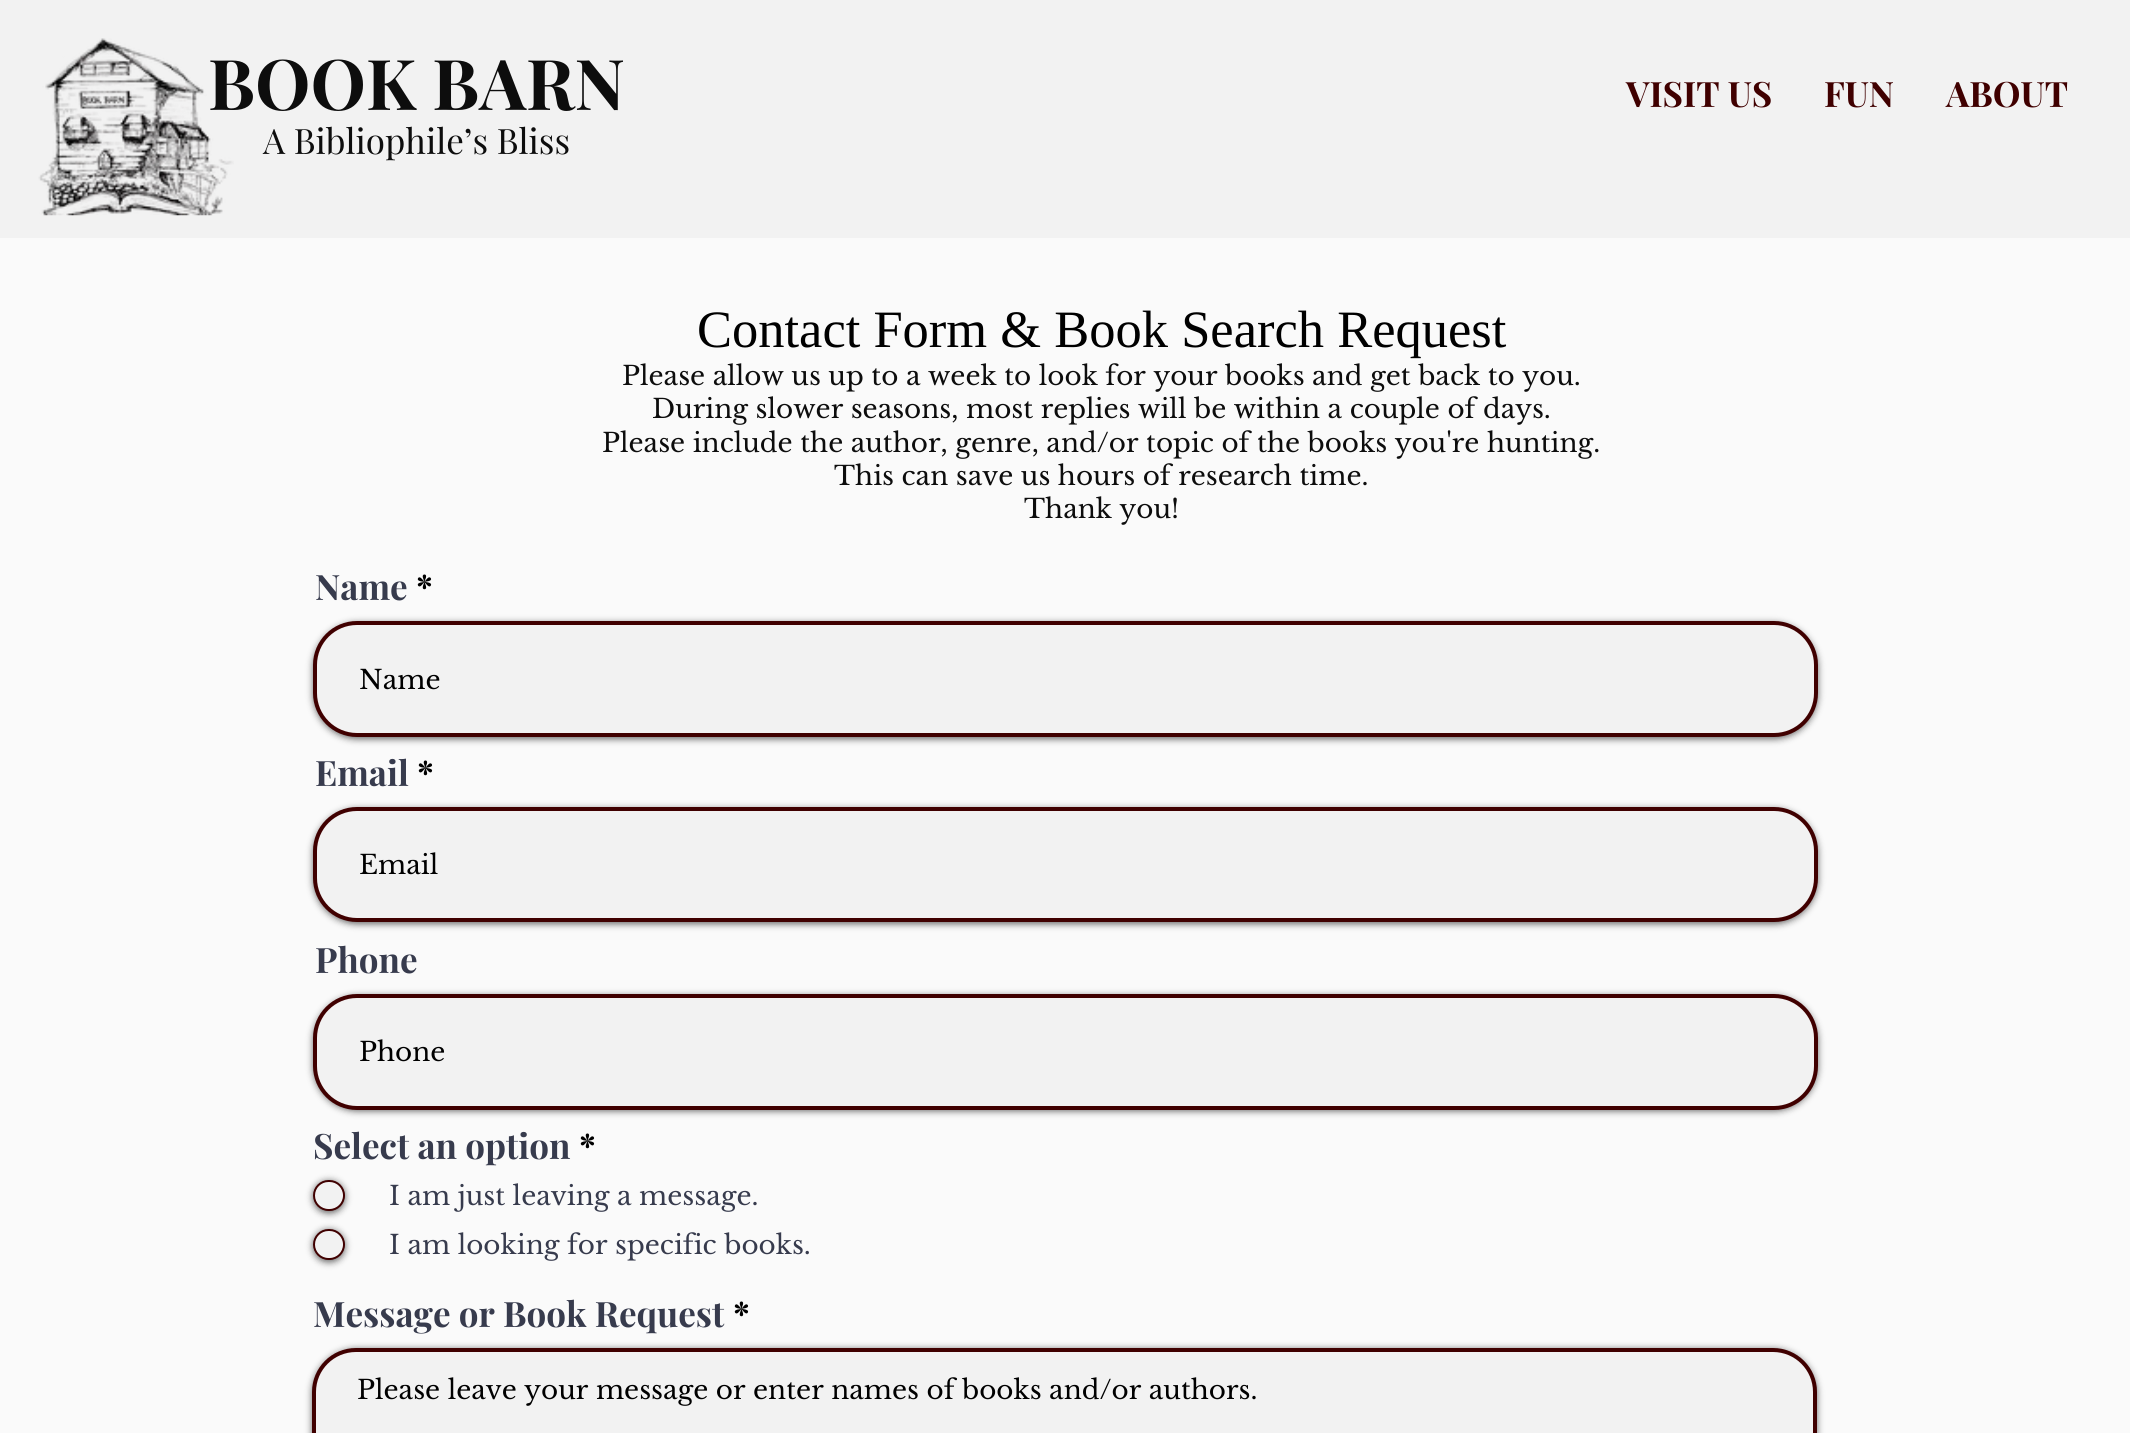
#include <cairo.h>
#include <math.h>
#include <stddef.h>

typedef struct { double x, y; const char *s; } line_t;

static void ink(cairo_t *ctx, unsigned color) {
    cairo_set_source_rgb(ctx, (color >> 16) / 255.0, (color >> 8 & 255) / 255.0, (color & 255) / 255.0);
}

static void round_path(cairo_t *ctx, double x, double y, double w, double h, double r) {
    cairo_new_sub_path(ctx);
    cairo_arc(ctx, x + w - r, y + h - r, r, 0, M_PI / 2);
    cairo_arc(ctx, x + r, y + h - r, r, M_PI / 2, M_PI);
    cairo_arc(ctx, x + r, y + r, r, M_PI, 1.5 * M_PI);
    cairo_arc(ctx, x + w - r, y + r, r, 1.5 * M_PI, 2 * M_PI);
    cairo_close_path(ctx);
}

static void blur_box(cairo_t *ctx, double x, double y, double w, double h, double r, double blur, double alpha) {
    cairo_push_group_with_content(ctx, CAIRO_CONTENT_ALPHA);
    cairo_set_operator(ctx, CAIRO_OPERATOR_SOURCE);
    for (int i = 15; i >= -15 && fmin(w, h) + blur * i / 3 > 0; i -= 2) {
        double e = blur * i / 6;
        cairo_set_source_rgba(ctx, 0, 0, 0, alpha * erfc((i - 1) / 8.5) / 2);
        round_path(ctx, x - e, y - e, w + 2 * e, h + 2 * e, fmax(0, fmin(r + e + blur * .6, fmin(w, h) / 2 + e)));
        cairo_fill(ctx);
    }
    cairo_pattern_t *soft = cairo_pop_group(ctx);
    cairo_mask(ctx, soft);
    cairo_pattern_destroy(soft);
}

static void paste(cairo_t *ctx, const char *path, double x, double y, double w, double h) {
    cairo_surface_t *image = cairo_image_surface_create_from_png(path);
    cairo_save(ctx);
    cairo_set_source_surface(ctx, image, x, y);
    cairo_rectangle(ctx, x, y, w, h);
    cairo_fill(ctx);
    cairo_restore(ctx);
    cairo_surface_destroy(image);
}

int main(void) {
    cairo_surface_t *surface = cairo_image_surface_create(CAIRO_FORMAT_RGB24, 2130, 1433);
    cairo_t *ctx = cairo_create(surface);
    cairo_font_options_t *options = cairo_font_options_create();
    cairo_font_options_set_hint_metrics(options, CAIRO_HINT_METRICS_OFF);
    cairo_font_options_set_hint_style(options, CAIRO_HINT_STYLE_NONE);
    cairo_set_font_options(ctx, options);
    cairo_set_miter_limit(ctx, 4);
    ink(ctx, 0xF2F2F2);
    cairo_paint(ctx);
    cairo_select_font_face(ctx, "Playfair Display", CAIRO_FONT_SLANT_NORMAL, CAIRO_FONT_WEIGHT_BOLD);
    cairo_set_font_size(ctx, 70);
    ink(ctx, 0x0D0D0D);
    cairo_move_to(ctx, 208, 110);
    cairo_show_text(ctx, "BOOK BARN");
    paste(ctx, "media/1.png", 38, 38, 196, 178);
    cairo_select_font_face(ctx, "Playfair Display", CAIRO_FONT_SLANT_NORMAL, CAIRO_FONT_WEIGHT_NORMAL);
    cairo_set_font_size(ctx, 35);
    cairo_move_to(ctx, 263, 154);
    cairo_show_text(ctx, "A Bibliophile’s Bliss");
    cairo_select_font_face(ctx, "Playfair Display", CAIRO_FONT_SLANT_NORMAL, CAIRO_FONT_WEIGHT_BOLD);
    ink(ctx, 0x400000);
    {
        static const line_t items[] = {
            {1626, 107, "VISIT US"},
            {1824, 107, "FUN"},
            {1946, 107, "ABOUT"},
        };
        for (size_t i = 0; i < sizeof items / sizeof *items; i++) {
            cairo_move_to(ctx, items[i].x, items[i].y);
            cairo_show_text(ctx, items[i].s);
        }
    }
    ink(ctx, 0xFAFAFA);
    cairo_rectangle(ctx, 0, 238, 2130, 1195);
    cairo_fill(ctx);
    cairo_select_font_face(ctx, "Liberation Serif", CAIRO_FONT_SLANT_NORMAL, CAIRO_FONT_WEIGHT_NORMAL);
    cairo_set_font_size(ctx, 52.5);
    ink(ctx, 0x000000);
    cairo_move_to(ctx, 697, 347);
    cairo_show_text(ctx, "Contact Form & Book Search Request");
    cairo_select_font_face(ctx, "Libre Baskerville", CAIRO_FONT_SLANT_NORMAL, CAIRO_FONT_WEIGHT_NORMAL);
    cairo_set_font_size(ctx, 26.25);
    ink(ctx, 0x0D0D0D);
    {
        static const line_t items[] = {
            {622, 385, "Please allow us up to a week to look for your books and get back to you."},
            {652, 418, "During slower seasons, most replies will be within a couple of days."},
            {602, 452, "Please include the author, genre, and/or topic of the books you're hunting."},
            {834, 485, "This can save us hours of research time."},
            {1024, 518, "Thank you!"},
        };
        for (size_t i = 0; i < sizeof items / sizeof *items; i++) {
            cairo_move_to(ctx, items[i].x, items[i].y);
            cairo_show_text(ctx, items[i].s);
        }
    }
    cairo_select_font_face(ctx, "Playfair Display", CAIRO_FONT_SLANT_NORMAL, CAIRO_FONT_WEIGHT_BOLD);
    cairo_set_font_size(ctx, 35);
    ink(ctx, 0x373B4D);
    cairo_move_to(ctx, 315, 600);
    cairo_show_text(ctx, "Name");
    ink(ctx, 0x000000);
    cairo_move_to(ctx, 416, 600);
    cairo_show_text(ctx, "*");
    ink(ctx, 0x000000);
    blur_box(ctx, 313, 623, 1505, 116, 44, 3.5, 0.6);
    ink(ctx, 0xF2F2F2);
    round_path(ctx, 315, 623, 1501, 112, 42);
    cairo_fill_preserve(ctx);
    ink(ctx, 0x400000);
    cairo_set_line_width(ctx, 4);
    cairo_stroke(ctx);
    cairo_select_font_face(ctx, "Libre Baskerville", CAIRO_FONT_SLANT_NORMAL, CAIRO_FONT_WEIGHT_NORMAL);
    cairo_set_font_size(ctx, 26.25);
    ink(ctx, 0x000000);
    cairo_move_to(ctx, 359, 689);
    cairo_show_text(ctx, "Name");
    cairo_select_font_face(ctx, "Playfair Display", CAIRO_FONT_SLANT_NORMAL, CAIRO_FONT_WEIGHT_BOLD);
    cairo_set_font_size(ctx, 35);
    ink(ctx, 0x373B4D);
    cairo_move_to(ctx, 315, 786);
    cairo_show_text(ctx, "Email");
    ink(ctx, 0x000000);
    cairo_move_to(ctx, 417, 786);
    cairo_show_text(ctx, "*");
    ink(ctx, 0x000000);
    blur_box(ctx, 313, 809, 1505, 115, 44, 3.5, 0.6);
    ink(ctx, 0xF2F2F2);
    round_path(ctx, 315, 809, 1501, 111, 42);
    cairo_fill_preserve(ctx);
    ink(ctx, 0x400000);
    cairo_stroke(ctx);
    cairo_select_font_face(ctx, "Libre Baskerville", CAIRO_FONT_SLANT_NORMAL, CAIRO_FONT_WEIGHT_NORMAL);
    cairo_set_font_size(ctx, 26.25);
    ink(ctx, 0x000000);
    cairo_move_to(ctx, 359, 874);
    cairo_show_text(ctx, "Email");
    cairo_select_font_face(ctx, "Playfair Display", CAIRO_FONT_SLANT_NORMAL, CAIRO_FONT_WEIGHT_BOLD);
    cairo_set_font_size(ctx, 35);
    ink(ctx, 0x373B4D);
    cairo_move_to(ctx, 315, 973);
    cairo_show_text(ctx, "Phone");
    ink(ctx, 0x000000);
    blur_box(ctx, 313, 996, 1505, 115, 44, 3.5, 0.6);
    ink(ctx, 0xF2F2F2);
    round_path(ctx, 315, 996, 1501, 112, 42);
    cairo_fill_preserve(ctx);
    ink(ctx, 0x400000);
    cairo_stroke(ctx);
    cairo_select_font_face(ctx, "Libre Baskerville", CAIRO_FONT_SLANT_NORMAL, CAIRO_FONT_WEIGHT_NORMAL);
    cairo_set_font_size(ctx, 26.25);
    ink(ctx, 0x000000);
    cairo_move_to(ctx, 359, 1061);
    cairo_show_text(ctx, "Phone");
    cairo_select_font_face(ctx, "Playfair Display", CAIRO_FONT_SLANT_NORMAL, CAIRO_FONT_WEIGHT_BOLD);
    cairo_set_font_size(ctx, 35);
    ink(ctx, 0x373B4D);
    cairo_move_to(ctx, 313, 1159);
    cairo_show_text(ctx, "Select an option");
    ink(ctx, 0x000000);
    cairo_move_to(ctx, 579, 1159);
    cairo_show_text(ctx, "*");
    ink(ctx, 0x000000);
    blur_box(ctx, 313, 1181, 32, 32, 16, 3.5, 0.6);
    ink(ctx, 0xF2F2F2);
    round_path(ctx, 314, 1181, 30, 29, 14.5);
    cairo_fill_preserve(ctx);
    ink(ctx, 0x400000);
    cairo_set_line_width(ctx, 2);
    cairo_stroke(ctx);
    cairo_select_font_face(ctx, "Libre Baskerville", CAIRO_FONT_SLANT_NORMAL, CAIRO_FONT_WEIGHT_NORMAL);
    cairo_set_font_size(ctx, 26.25);
    ink(ctx, 0x373B4D);
    cairo_move_to(ctx, 389, 1205);
    cairo_show_text(ctx, "I am just leaving a message.");
    ink(ctx, 0x000000);
    blur_box(ctx, 313, 1230, 32, 32, 16, 3.5, 0.6);
    ink(ctx, 0xF2F2F2);
    round_path(ctx, 314, 1230, 30, 29, 14.5);
    cairo_fill_preserve(ctx);
    ink(ctx, 0x400000);
    cairo_stroke(ctx);
    ink(ctx, 0x373B4D);
    cairo_move_to(ctx, 389, 1254);
    cairo_show_text(ctx, "I am looking for specific books.");
    cairo_select_font_face(ctx, "Playfair Display", CAIRO_FONT_SLANT_NORMAL, CAIRO_FONT_WEIGHT_BOLD);
    cairo_set_font_size(ctx, 35);
    cairo_move_to(ctx, 313, 1327);
    cairo_show_text(ctx, "Message or Book Request");
    ink(ctx, 0x000000);
    cairo_move_to(ctx, 733, 1327);
    cairo_show_text(ctx, "*");
    ink(ctx, 0x000000);
    blur_box(ctx, 312, 1349, 1505, 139, 44, 3.5, 0.6);
    ink(ctx, 0xF2F2F2);
    round_path(ctx, 314, 1350, 1501, 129, 42);
    cairo_fill_preserve(ctx);
    ink(ctx, 0x400000);
    cairo_set_line_width(ctx, 4);
    cairo_stroke(ctx);
    cairo_select_font_face(ctx, "Libre Baskerville", CAIRO_FONT_SLANT_NORMAL, CAIRO_FONT_WEIGHT_NORMAL);
    cairo_set_font_size(ctx, 26.25);
    ink(ctx, 0x000000);
    cairo_move_to(ctx, 357, 1399);
    cairo_show_text(ctx, "Please leave your message or enter names of books and/or authors.");
    cairo_surface_write_to_png(surface, "image.png");
    cairo_font_options_destroy(options);
    cairo_destroy(ctx);
    cairo_surface_destroy(surface);
    return 0;
}
